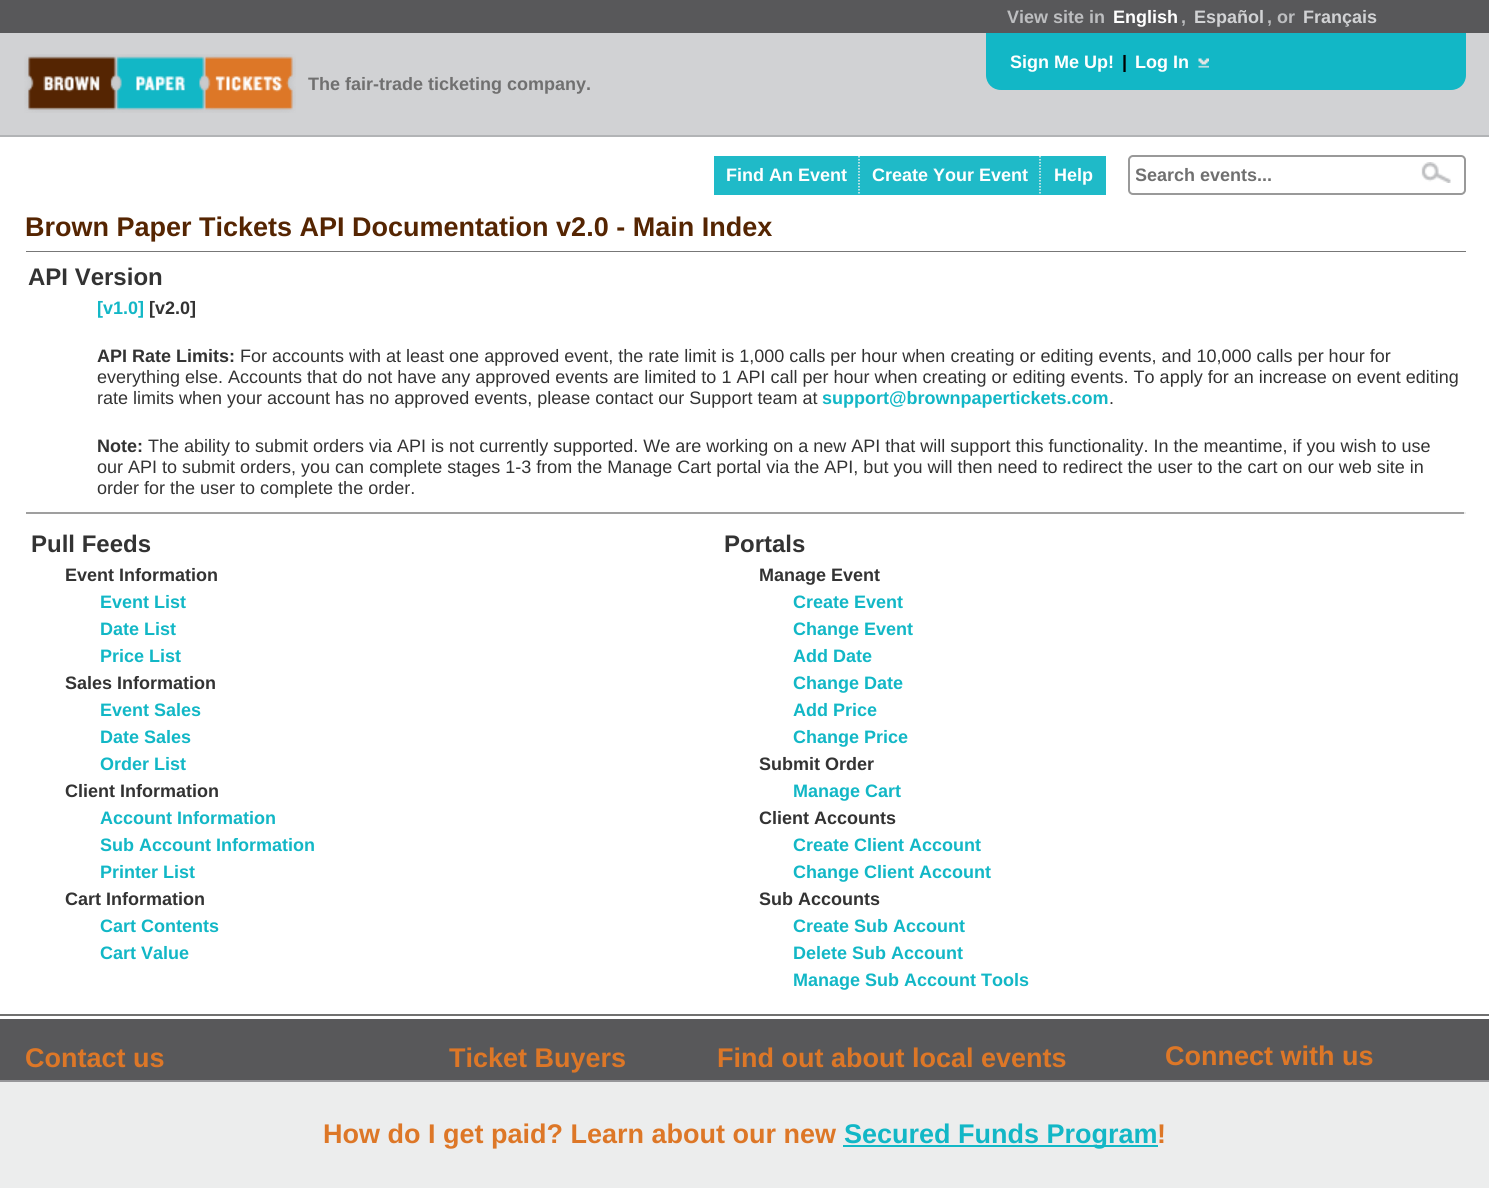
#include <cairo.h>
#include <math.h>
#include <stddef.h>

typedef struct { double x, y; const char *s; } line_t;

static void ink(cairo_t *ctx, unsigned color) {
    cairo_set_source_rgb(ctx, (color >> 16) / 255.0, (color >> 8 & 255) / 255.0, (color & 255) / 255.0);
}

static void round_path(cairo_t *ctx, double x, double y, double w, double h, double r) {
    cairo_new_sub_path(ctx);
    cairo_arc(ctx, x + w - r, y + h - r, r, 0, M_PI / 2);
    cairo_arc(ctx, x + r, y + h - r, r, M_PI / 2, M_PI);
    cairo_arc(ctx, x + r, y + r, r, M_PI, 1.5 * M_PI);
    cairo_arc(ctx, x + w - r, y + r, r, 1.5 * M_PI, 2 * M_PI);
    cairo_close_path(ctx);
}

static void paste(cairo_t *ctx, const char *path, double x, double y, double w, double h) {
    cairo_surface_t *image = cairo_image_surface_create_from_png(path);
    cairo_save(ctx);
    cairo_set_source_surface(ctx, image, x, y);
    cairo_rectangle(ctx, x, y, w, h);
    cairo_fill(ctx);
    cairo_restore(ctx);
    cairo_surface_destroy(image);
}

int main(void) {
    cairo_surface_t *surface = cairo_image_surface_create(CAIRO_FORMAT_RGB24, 1489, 1188);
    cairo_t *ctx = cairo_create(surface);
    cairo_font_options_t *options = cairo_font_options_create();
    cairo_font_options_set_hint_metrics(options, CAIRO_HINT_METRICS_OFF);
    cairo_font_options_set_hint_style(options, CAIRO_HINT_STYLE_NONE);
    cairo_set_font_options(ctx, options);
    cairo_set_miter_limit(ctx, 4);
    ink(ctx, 0x58585A);
    cairo_paint(ctx);
    cairo_select_font_face(ctx, "Liberation Sans", CAIRO_FONT_SLANT_NORMAL, CAIRO_FONT_WEIGHT_BOLD);
    cairo_set_font_size(ctx, 18);
    ink(ctx, 0xBDBEC0);
    cairo_move_to(ctx, 1007, 23);
    cairo_show_text(ctx, "View site in");
    ink(ctx, 0xFFFFFF);
    cairo_move_to(ctx, 1113, 23);
    cairo_show_text(ctx, "English");
    ink(ctx, 0xBDBEC0);
    cairo_move_to(ctx, 1181, 23);
    cairo_show_text(ctx, ",");
    ink(ctx, 0xD1D2D4);
    cairo_move_to(ctx, 1194, 23);
    cairo_show_text(ctx, "Español");
    ink(ctx, 0xBDBEC0);
    cairo_move_to(ctx, 1267, 23);
    cairo_show_text(ctx, ", or");
    ink(ctx, 0xD1D2D4);
    cairo_move_to(ctx, 1303, 23);
    cairo_show_text(ctx, "Français");
    cairo_rectangle(ctx, 0, 33, 1489, 102);
    cairo_fill(ctx);
    ink(ctx, 0xB2B4B6);
    cairo_rectangle(ctx, 0, 135, 1489, 2);
    cairo_fill(ctx);
    paste(ctx, "media/1.png", 24, 54, 272, 59);
    ink(ctx, 0x12B7C6);
    cairo_new_path(ctx);
    cairo_move_to(ctx, 986, 33);
    cairo_line_to(ctx, 1466, 33);
    cairo_line_to(ctx, 1466, 75);
    cairo_curve_to(ctx, 1466, 83.5, 1459.5, 90, 1451, 90);
    cairo_line_to(ctx, 1001, 90);
    cairo_curve_to(ctx, 992.5, 90, 986, 83.5, 986, 75);
    cairo_close_path(ctx);
    cairo_fill(ctx);
    ink(ctx, 0xFFFFFF);
    cairo_move_to(ctx, 1010, 68);
    cairo_show_text(ctx, "Sign Me Up!");
    ink(ctx, 0x000000);
    cairo_move_to(ctx, 1122, 68);
    cairo_show_text(ctx, "|");
    ink(ctx, 0xFFFFFF);
    cairo_move_to(ctx, 1135, 68);
    cairo_show_text(ctx, "Log In");
    paste(ctx, "media/2.png", 1198, 58, 11, 10);
    ink(ctx, 0x707070);
    cairo_move_to(ctx, 308, 90);
    cairo_show_text(ctx, "The fair-trade ticketing company.");
    ink(ctx, 0xFFFFFF);
    cairo_rectangle(ctx, 0, 137, 1489, 882);
    cairo_fill(ctx);
    ink(ctx, 0x1FBAC8);
    cairo_rectangle(ctx, 714, 156, 392, 39);
    cairo_fill(ctx);
    cairo_new_path(ctx);
    cairo_move_to(ctx, 859, 156);
    cairo_line_to(ctx, 859, 195);
    ink(ctx, 0xEFEFEF);
    cairo_set_line_width(ctx, 1.5);
    cairo_set_dash(ctx, (double[]){1.5, 1.5}, 2, 0);
    cairo_stroke(ctx);
    ink(ctx, 0xFFFFFF);
    cairo_move_to(ctx, 726, 181);
    cairo_show_text(ctx, "Find An Event");
    cairo_new_path(ctx);
    cairo_move_to(ctx, 1040, 156);
    cairo_line_to(ctx, 1040, 195);
    ink(ctx, 0xEFEFEF);
    cairo_stroke(ctx);
    ink(ctx, 0xFFFFFF);
    cairo_move_to(ctx, 872, 181);
    cairo_show_text(ctx, "Create Your Event");
    cairo_move_to(ctx, 1054, 181);
    cairo_show_text(ctx, "Help");
    round_path(ctx, 1129, 156, 336, 38, 4);
    ink(ctx, 0x999999);
    cairo_set_line_width(ctx, 2);
    cairo_set_dash(ctx, NULL, 0, 0);
    cairo_stroke(ctx);
    cairo_save(ctx);
    cairo_rectangle(ctx, 1136, 165, 262, 21);
    cairo_clip(ctx);
    ink(ctx, 0x707070);
    cairo_move_to(ctx, 1135, 181);
    cairo_show_text(ctx, "Search events...");
    cairo_restore(ctx);
    paste(ctx, "media/3.png", 1421, 162, 30, 21);
    ink(ctx, 0x777777);
    cairo_rectangle(ctx, 26, 251, 1440, 1);
    cairo_fill(ctx);
    cairo_set_font_size(ctx, 27);
    ink(ctx, 0x552502);
    cairo_move_to(ctx, 25, 236);
    cairo_show_text(ctx, "Brown Paper Tickets API Documentation v2.0 - Main Index");
    cairo_set_font_size(ctx, 24);
    ink(ctx, 0x333333);
    cairo_move_to(ctx, 28, 285);
    cairo_show_text(ctx, "API Version");
    cairo_set_font_size(ctx, 18);
    ink(ctx, 0x12B7C6);
    cairo_move_to(ctx, 97, 314);
    cairo_show_text(ctx, "[v1.0]");
    ink(ctx, 0x333333);
    cairo_move_to(ctx, 149, 314);
    cairo_show_text(ctx, "[v2.0]");
    cairo_move_to(ctx, 97, 362);
    cairo_show_text(ctx, "API Rate Limits:");
    cairo_select_font_face(ctx, "Liberation Sans", CAIRO_FONT_SLANT_NORMAL, CAIRO_FONT_WEIGHT_NORMAL);
    {
        static const line_t items[] = {
            {240, 362, "For accounts with at least one approved event, the rate limit is 1,000 calls per hour when creating or editing events, and 10,000 calls per hour for"},
            {97, 383, "everything else. Accounts that do not have any approved events are limited to 1 API call per hour when creating or editing events. To apply for an increase on event editing"},
            {97, 404, "rate limits when your account has no approved events, please contact our Support team at"},
        };
        for (size_t i = 0; i < sizeof items / sizeof *items; i++) {
            cairo_move_to(ctx, items[i].x, items[i].y);
            cairo_show_text(ctx, items[i].s);
        }
    }
    cairo_select_font_face(ctx, "Liberation Sans", CAIRO_FONT_SLANT_NORMAL, CAIRO_FONT_WEIGHT_BOLD);
    ink(ctx, 0x12B7C6);
    cairo_move_to(ctx, 822, 404);
    cairo_show_text(ctx, "support@brownpapertickets.com");
    cairo_select_font_face(ctx, "Liberation Sans", CAIRO_FONT_SLANT_NORMAL, CAIRO_FONT_WEIGHT_NORMAL);
    ink(ctx, 0x333333);
    cairo_move_to(ctx, 1109, 404);
    cairo_show_text(ctx, ".");
    cairo_select_font_face(ctx, "Liberation Sans", CAIRO_FONT_SLANT_NORMAL, CAIRO_FONT_WEIGHT_BOLD);
    cairo_move_to(ctx, 97, 452);
    cairo_show_text(ctx, "Note:");
    cairo_select_font_face(ctx, "Liberation Sans", CAIRO_FONT_SLANT_NORMAL, CAIRO_FONT_WEIGHT_NORMAL);
    {
        static const line_t items[] = {
            {148, 452, "The ability to submit orders via API is not currently supported. We are working on a new API that will support this functionality. In the meantime, if you wish to use"},
            {97, 473, "our API to submit orders, you can complete stages 1-3 from the Manage Cart portal via the API, but you will then need to redirect the user to the cart on our web site in"},
            {97, 494, "order for the user to complete the order."},
        };
        for (size_t i = 0; i < sizeof items / sizeof *items; i++) {
            cairo_move_to(ctx, items[i].x, items[i].y);
            cairo_show_text(ctx, items[i].s);
        }
    }
    ink(ctx, 0x9F9F9F);
    cairo_rectangle(ctx, 26, 512, 1440, 2);
    cairo_fill(ctx);
    ink(ctx, 0xEEEEEE);
    cairo_rectangle(ctx, 1464, 512, 2, 2);
    cairo_fill(ctx);
    cairo_select_font_face(ctx, "Liberation Sans", CAIRO_FONT_SLANT_NORMAL, CAIRO_FONT_WEIGHT_BOLD);
    cairo_set_font_size(ctx, 24);
    ink(ctx, 0x333333);
    cairo_move_to(ctx, 31, 552);
    cairo_show_text(ctx, "Pull Feeds");
    cairo_set_font_size(ctx, 18);
    cairo_move_to(ctx, 65, 581);
    cairo_show_text(ctx, "Event Information");
    ink(ctx, 0x12B7C6);
    {
        static const line_t items[] = {
            {100, 608, "Event List"},
            {100, 635, "Date List"},
            {100, 662, "Price List"},
        };
        for (size_t i = 0; i < sizeof items / sizeof *items; i++) {
            cairo_move_to(ctx, items[i].x, items[i].y);
            cairo_show_text(ctx, items[i].s);
        }
    }
    ink(ctx, 0x333333);
    cairo_move_to(ctx, 65, 689);
    cairo_show_text(ctx, "Sales Information");
    ink(ctx, 0x12B7C6);
    {
        static const line_t items[] = {
            {100, 716, "Event Sales"},
            {100, 743, "Date Sales"},
            {100, 770, "Order List"},
        };
        for (size_t i = 0; i < sizeof items / sizeof *items; i++) {
            cairo_move_to(ctx, items[i].x, items[i].y);
            cairo_show_text(ctx, items[i].s);
        }
    }
    ink(ctx, 0x333333);
    cairo_move_to(ctx, 65, 797);
    cairo_show_text(ctx, "Client Information");
    ink(ctx, 0x12B7C6);
    {
        static const line_t items[] = {
            {100, 824, "Account Information"},
            {100, 851, "Sub Account Information"},
            {100, 878, "Printer List"},
        };
        for (size_t i = 0; i < sizeof items / sizeof *items; i++) {
            cairo_move_to(ctx, items[i].x, items[i].y);
            cairo_show_text(ctx, items[i].s);
        }
    }
    ink(ctx, 0x333333);
    cairo_move_to(ctx, 65, 905);
    cairo_show_text(ctx, "Cart Information");
    ink(ctx, 0x12B7C6);
    cairo_move_to(ctx, 100, 932);
    cairo_show_text(ctx, "Cart Contents");
    cairo_move_to(ctx, 100, 959);
    cairo_show_text(ctx, "Cart Value");
    cairo_set_font_size(ctx, 24);
    ink(ctx, 0x333333);
    cairo_move_to(ctx, 724, 552);
    cairo_show_text(ctx, "Portals");
    cairo_set_font_size(ctx, 18);
    cairo_move_to(ctx, 759, 581);
    cairo_show_text(ctx, "Manage Event");
    ink(ctx, 0x12B7C6);
    {
        static const line_t items[] = {
            {793, 608, "Create Event"},
            {793, 635, "Change Event"},
            {793, 662, "Add Date"},
            {793, 689, "Change Date"},
            {793, 716, "Add Price"},
            {793, 743, "Change Price"},
        };
        for (size_t i = 0; i < sizeof items / sizeof *items; i++) {
            cairo_move_to(ctx, items[i].x, items[i].y);
            cairo_show_text(ctx, items[i].s);
        }
    }
    ink(ctx, 0x333333);
    cairo_move_to(ctx, 759, 770);
    cairo_show_text(ctx, "Submit Order");
    ink(ctx, 0x12B7C6);
    cairo_move_to(ctx, 793, 797);
    cairo_show_text(ctx, "Manage Cart");
    ink(ctx, 0x333333);
    cairo_move_to(ctx, 759, 824);
    cairo_show_text(ctx, "Client Accounts");
    ink(ctx, 0x12B7C6);
    cairo_move_to(ctx, 793, 851);
    cairo_show_text(ctx, "Create Client Account");
    cairo_move_to(ctx, 793, 878);
    cairo_show_text(ctx, "Change Client Account");
    ink(ctx, 0x333333);
    cairo_move_to(ctx, 759, 905);
    cairo_show_text(ctx, "Sub Accounts");
    ink(ctx, 0x12B7C6);
    {
        static const line_t items[] = {
            {793, 932, "Create Sub Account"},
            {793, 959, "Delete Sub Account"},
            {793, 986, "Manage Sub Account Tools"},
        };
        for (size_t i = 0; i < sizeof items / sizeof *items; i++) {
            cairo_move_to(ctx, items[i].x, items[i].y);
            cairo_show_text(ctx, items[i].s);
        }
    }
    ink(ctx, 0x707070);
    cairo_rectangle(ctx, 0, 1014, 1489, 2);
    cairo_fill(ctx);
    cairo_set_font_size(ctx, 27);
    ink(ctx, 0xDD7727);
    {
        static const line_t items[] = {
            {25, 1067, "Contact us"},
            {449, 1067, "Ticket Buyers"},
            {717, 1067, "Find out about local events"},
            {1165, 1065, "Connect with us"},
        };
        for (size_t i = 0; i < sizeof items / sizeof *items; i++) {
            cairo_move_to(ctx, items[i].x, items[i].y);
            cairo_show_text(ctx, items[i].s);
        }
    }
    ink(ctx, 0xECEDED);
    cairo_rectangle(ctx, 0, 1082, 1489, 106);
    cairo_fill(ctx);
    ink(ctx, 0x969699);
    cairo_rectangle(ctx, 0, 1080, 1489, 2);
    cairo_fill(ctx);
    ink(ctx, 0xDD7727);
    cairo_move_to(ctx, 323, 1143);
    cairo_show_text(ctx, "How do I get paid? Learn about our new");
    ink(ctx, 0x12B7C6);
    cairo_rectangle(ctx, 843, 1145, 315, 2);
    cairo_fill(ctx);
    cairo_move_to(ctx, 844, 1143);
    cairo_show_text(ctx, "Secured Funds Program");
    ink(ctx, 0xDD7727);
    cairo_move_to(ctx, 1157, 1143);
    cairo_show_text(ctx, "!");
    cairo_surface_write_to_png(surface, "image.png");
    cairo_font_options_destroy(options);
    cairo_destroy(ctx);
    cairo_surface_destroy(surface);
    return 0;
}
